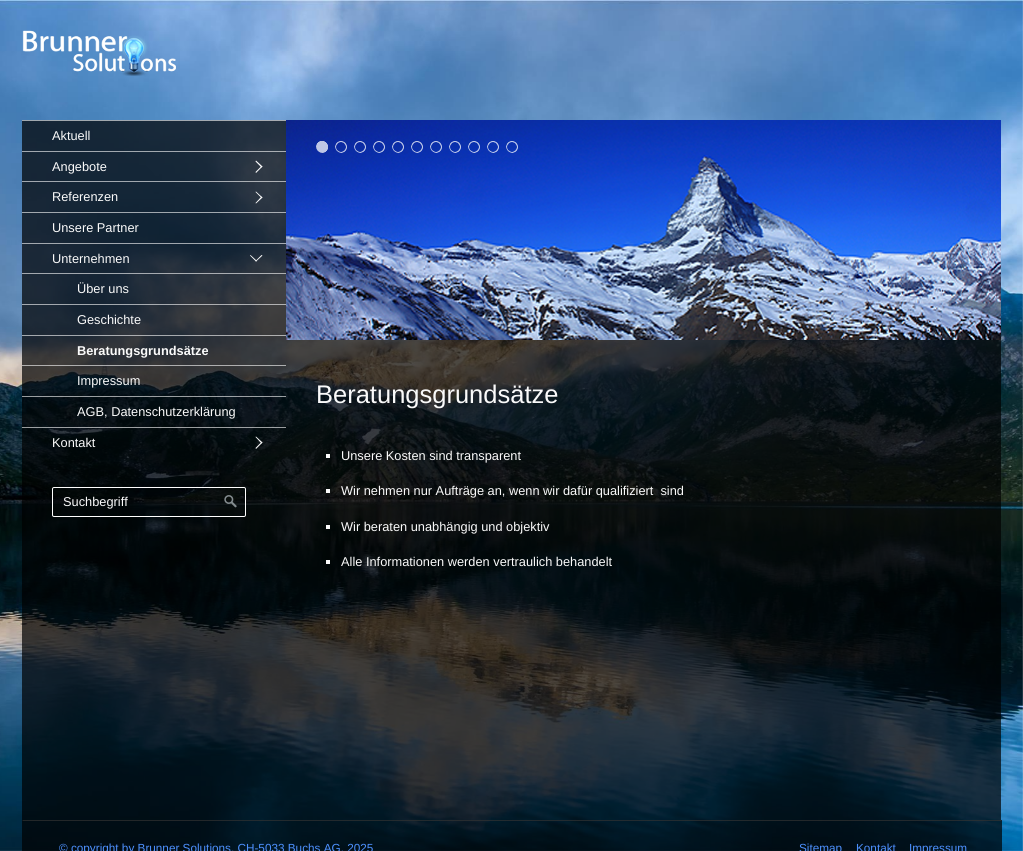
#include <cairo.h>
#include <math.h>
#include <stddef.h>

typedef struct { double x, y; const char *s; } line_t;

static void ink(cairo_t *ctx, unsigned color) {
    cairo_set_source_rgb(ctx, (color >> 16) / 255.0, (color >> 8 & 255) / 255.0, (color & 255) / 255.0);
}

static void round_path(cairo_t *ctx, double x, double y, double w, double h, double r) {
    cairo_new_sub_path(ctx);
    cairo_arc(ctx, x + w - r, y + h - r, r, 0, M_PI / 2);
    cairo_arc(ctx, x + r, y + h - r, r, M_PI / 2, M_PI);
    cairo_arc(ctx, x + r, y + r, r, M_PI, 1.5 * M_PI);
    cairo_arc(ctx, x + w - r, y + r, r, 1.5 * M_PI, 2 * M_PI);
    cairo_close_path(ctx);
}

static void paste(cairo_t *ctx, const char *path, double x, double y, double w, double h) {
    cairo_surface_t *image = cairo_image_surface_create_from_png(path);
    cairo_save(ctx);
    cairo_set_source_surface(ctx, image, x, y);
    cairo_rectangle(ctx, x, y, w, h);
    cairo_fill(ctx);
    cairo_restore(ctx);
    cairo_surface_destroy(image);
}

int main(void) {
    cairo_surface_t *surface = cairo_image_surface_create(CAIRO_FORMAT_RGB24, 1023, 851);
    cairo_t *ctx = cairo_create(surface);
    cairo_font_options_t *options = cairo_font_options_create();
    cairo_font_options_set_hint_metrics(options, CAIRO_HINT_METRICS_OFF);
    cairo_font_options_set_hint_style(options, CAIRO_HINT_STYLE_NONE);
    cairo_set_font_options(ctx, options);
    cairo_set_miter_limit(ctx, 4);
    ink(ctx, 0xFFFFFF);
    cairo_paint(ctx);
    paste(ctx, "media/1.png", 0, 0, 1023, 851);
    paste(ctx, "media/2.png", 22, 30, 154, 46);
    cairo_set_source_rgba(ctx, 0, 0, 0, 0.7);
    cairo_rectangle(ctx, 22, 120, 264, 700);
    cairo_fill(ctx);
    cairo_set_source_rgba(ctx, 1, 1, 1, 0.6);
    cairo_rectangle(ctx, 22, 120, 264, 1);
    cairo_fill(ctx);
    cairo_select_font_face(ctx, "Liberation Sans", CAIRO_FONT_SLANT_NORMAL, CAIRO_FONT_WEIGHT_NORMAL);
    cairo_set_font_size(ctx, 12.8);
    ink(ctx, 0xFAFAFA);
    cairo_move_to(ctx, 52, 140);
    cairo_show_text(ctx, "Aktuell");
    cairo_set_source_rgba(ctx, 1, 1, 1, 0.6);
    cairo_rectangle(ctx, 22, 151, 264, 1);
    cairo_fill(ctx);
    ink(ctx, 0xFAFAFA);
    cairo_move_to(ctx, 52, 171);
    cairo_show_text(ctx, "Angebote");
    ink(ctx, 0xFFFFFF);
    cairo_new_path(ctx);
    cairo_move_to(ctx, 256, 160.5);
    cairo_line_to(ctx, 262.5, 166.5);
    cairo_line_to(ctx, 261.5, 167.5);
    cairo_line_to(ctx, 255.5, 161.5);
    cairo_close_path(ctx);
    cairo_fill(ctx);
    cairo_new_path(ctx);
    cairo_move_to(ctx, 261.5, 166);
    cairo_line_to(ctx, 262.5, 166.5);
    cairo_line_to(ctx, 256, 173);
    cairo_line_to(ctx, 255.5, 172);
    cairo_close_path(ctx);
    cairo_fill(ctx);
    cairo_set_source_rgba(ctx, 1, 1, 1, 0.6);
    cairo_rectangle(ctx, 22, 181, 264, 1);
    cairo_fill(ctx);
    ink(ctx, 0xFAFAFA);
    cairo_move_to(ctx, 52, 201);
    cairo_show_text(ctx, "Referenzen");
    ink(ctx, 0xFFFFFF);
    cairo_new_path(ctx);
    cairo_move_to(ctx, 256, 191.5);
    cairo_line_to(ctx, 262.5, 197.5);
    cairo_line_to(ctx, 261.5, 198);
    cairo_line_to(ctx, 255.5, 192);
    cairo_close_path(ctx);
    cairo_fill(ctx);
    cairo_new_path(ctx);
    cairo_move_to(ctx, 261.5, 196.5);
    cairo_line_to(ctx, 262.5, 197.5);
    cairo_line_to(ctx, 256, 203.5);
    cairo_line_to(ctx, 255.5, 203);
    cairo_close_path(ctx);
    cairo_fill(ctx);
    cairo_set_source_rgba(ctx, 1, 1, 1, 0.6);
    cairo_rectangle(ctx, 22, 212, 264, 1);
    cairo_fill(ctx);
    ink(ctx, 0xFAFAFA);
    cairo_move_to(ctx, 52, 232);
    cairo_show_text(ctx, "Unsere Partner");
    cairo_set_source_rgba(ctx, 1, 1, 1, 0.6);
    cairo_rectangle(ctx, 22, 243, 264, 1);
    cairo_fill(ctx);
    ink(ctx, 0xFAFAFA);
    cairo_move_to(ctx, 52, 263);
    cairo_show_text(ctx, "Unternehmen");
    ink(ctx, 0xFFFFFF);
    cairo_new_path(ctx);
    cairo_move_to(ctx, 262.5, 255.5);
    cairo_line_to(ctx, 256, 261.5);
    cairo_line_to(ctx, 255.5, 261);
    cairo_line_to(ctx, 261.5, 255);
    cairo_close_path(ctx);
    cairo_fill(ctx);
    cairo_new_path(ctx);
    cairo_move_to(ctx, 257, 261);
    cairo_line_to(ctx, 256, 261.5);
    cairo_line_to(ctx, 250, 255.5);
    cairo_line_to(ctx, 250.5, 255);
    cairo_close_path(ctx);
    cairo_fill(ctx);
    cairo_set_source_rgba(ctx, 1, 1, 1, 0.6);
    cairo_rectangle(ctx, 22, 273, 264, 1);
    cairo_fill(ctx);
    ink(ctx, 0xFAFAFA);
    cairo_move_to(ctx, 77, 293);
    cairo_show_text(ctx, "Über uns");
    cairo_set_source_rgba(ctx, 1, 1, 1, 0.6);
    cairo_rectangle(ctx, 22, 304, 264, 1);
    cairo_fill(ctx);
    ink(ctx, 0xFAFAFA);
    cairo_move_to(ctx, 77, 324);
    cairo_show_text(ctx, "Geschichte");
    cairo_set_source_rgba(ctx, 1, 1, 1, 0.6);
    cairo_rectangle(ctx, 22, 335, 264, 1);
    cairo_fill(ctx);
    cairo_select_font_face(ctx, "Liberation Sans", CAIRO_FONT_SLANT_NORMAL, CAIRO_FONT_WEIGHT_BOLD);
    ink(ctx, 0xFAFAFA);
    cairo_move_to(ctx, 77, 355);
    cairo_show_text(ctx, "Beratungsgrundsätze");
    cairo_set_source_rgba(ctx, 1, 1, 1, 0.6);
    cairo_rectangle(ctx, 22, 365, 264, 1);
    cairo_fill(ctx);
    cairo_select_font_face(ctx, "Liberation Sans", CAIRO_FONT_SLANT_NORMAL, CAIRO_FONT_WEIGHT_NORMAL);
    ink(ctx, 0xFAFAFA);
    cairo_move_to(ctx, 77, 385);
    cairo_show_text(ctx, "Impressum");
    cairo_set_source_rgba(ctx, 1, 1, 1, 0.6);
    cairo_rectangle(ctx, 22, 396, 264, 1);
    cairo_fill(ctx);
    ink(ctx, 0xFAFAFA);
    cairo_move_to(ctx, 77, 416);
    cairo_show_text(ctx, "AGB, Datenschutzerklärung");
    cairo_set_source_rgba(ctx, 1, 1, 1, 0.6);
    cairo_rectangle(ctx, 22, 427, 264, 1);
    cairo_fill(ctx);
    ink(ctx, 0xFAFAFA);
    cairo_move_to(ctx, 52, 447);
    cairo_show_text(ctx, "Kontakt");
    ink(ctx, 0xFFFFFF);
    cairo_new_path(ctx);
    cairo_move_to(ctx, 256, 436.5);
    cairo_line_to(ctx, 262.5, 442.5);
    cairo_line_to(ctx, 261.5, 443.5);
    cairo_line_to(ctx, 255.5, 437);
    cairo_close_path(ctx);
    cairo_fill(ctx);
    cairo_new_path(ctx);
    cairo_move_to(ctx, 261.5, 442);
    cairo_line_to(ctx, 262.5, 442.5);
    cairo_line_to(ctx, 256, 449);
    cairo_line_to(ctx, 255.5, 448);
    cairo_close_path(ctx);
    cairo_fill(ctx);
    round_path(ctx, 52.5, 487.5, 193, 29, 1.5);
    cairo_set_line_width(ctx, 1);
    cairo_stroke(ctx);
    ink(ctx, 0xFAFAFA);
    cairo_move_to(ctx, 63, 506);
    cairo_show_text(ctx, "Suchbegriff");
    paste(ctx, "media/3.png", 224, 495, 13, 13);
    cairo_set_source_rgba(ctx, 0, 0, 0, 0.7);
    cairo_rectangle(ctx, 286, 340, 715, 30);
    cairo_fill(ctx);
    paste(ctx, "media/4.png", 286, 120, 715, 220);
    paste(ctx, "media/5.png", 316, 141, 12, 12);
    paste(ctx, "media/6.png", 335, 141, 12, 12);
    paste(ctx, "media/7.png", 354, 141, 12, 12);
    paste(ctx, "media/8.png", 373, 141, 12, 12);
    paste(ctx, "media/9.png", 392, 141, 12, 12);
    paste(ctx, "media/10.png", 411, 141, 12, 12);
    paste(ctx, "media/11.png", 430, 141, 12, 12);
    paste(ctx, "media/12.png", 449, 141, 12, 12);
    paste(ctx, "media/13.png", 468, 141, 12, 12);
    paste(ctx, "media/14.png", 487, 141, 12, 12);
    paste(ctx, "media/15.png", 506, 141, 12, 12);
    cairo_rectangle(ctx, 286, 370, 715, 450);
    cairo_fill(ctx);
    cairo_set_font_size(ctx, 25.5);
    ink(ctx, 0xFAFAFA);
    cairo_move_to(ctx, 316, 403);
    cairo_show_text(ctx, "Beratungsgrundsätze");
    cairo_rectangle(ctx, 326, 454, 4, 4);
    cairo_fill(ctx);
    cairo_set_font_size(ctx, 12.8);
    cairo_move_to(ctx, 341, 460);
    cairo_show_text(ctx, "Unsere Kosten sind transparent");
    cairo_rectangle(ctx, 326, 489, 4, 4);
    cairo_fill(ctx);
    cairo_move_to(ctx, 341, 495);
    cairo_show_text(ctx, "Wir nehmen nur Aufträge an, wenn wir dafür qualifiziert  sind");
    cairo_rectangle(ctx, 326, 525, 4, 4);
    cairo_fill(ctx);
    cairo_move_to(ctx, 341, 531);
    cairo_show_text(ctx, "Wir beraten unabhängig und objektiv");
    cairo_rectangle(ctx, 326, 560, 4, 4);
    cairo_fill(ctx);
    cairo_move_to(ctx, 341, 566);
    cairo_show_text(ctx, "Alle Informationen werden vertraulich behandelt");
    cairo_set_source_rgba(ctx, 0, 0, 0, 0.7);
    cairo_rectangle(ctx, 22, 820, 980, 31);
    cairo_fill(ctx);
    cairo_set_source_rgba(ctx, 0.2, 0.2, 0.2, 0.7);
    cairo_new_path(ctx);
    cairo_move_to(ctx, 22, 820);
    cairo_line_to(ctx, 1002, 820);
    cairo_line_to(ctx, 1001, 821);
    cairo_line_to(ctx, 23, 821);
    cairo_close_path(ctx);
    cairo_fill(ctx);
    cairo_set_font_size(ctx, 11.75);
    ink(ctx, 0x4D90FE);
    {
        static const line_t items[] = {
            {59, 852, "© copyright by Brunner Solutions, CH-5033 Buchs AG, 2025"},
            {799, 852, "Sitemap"},
            {856, 852, "Kontakt"},
            {909, 852, "Impressum"},
        };
        for (size_t i = 0; i < sizeof items / sizeof *items; i++) {
            cairo_move_to(ctx, items[i].x, items[i].y);
            cairo_show_text(ctx, items[i].s);
        }
    }
    cairo_surface_write_to_png(surface, "image.png");
    cairo_font_options_destroy(options);
    cairo_destroy(ctx);
    cairo_surface_destroy(surface);
    return 0;
}
